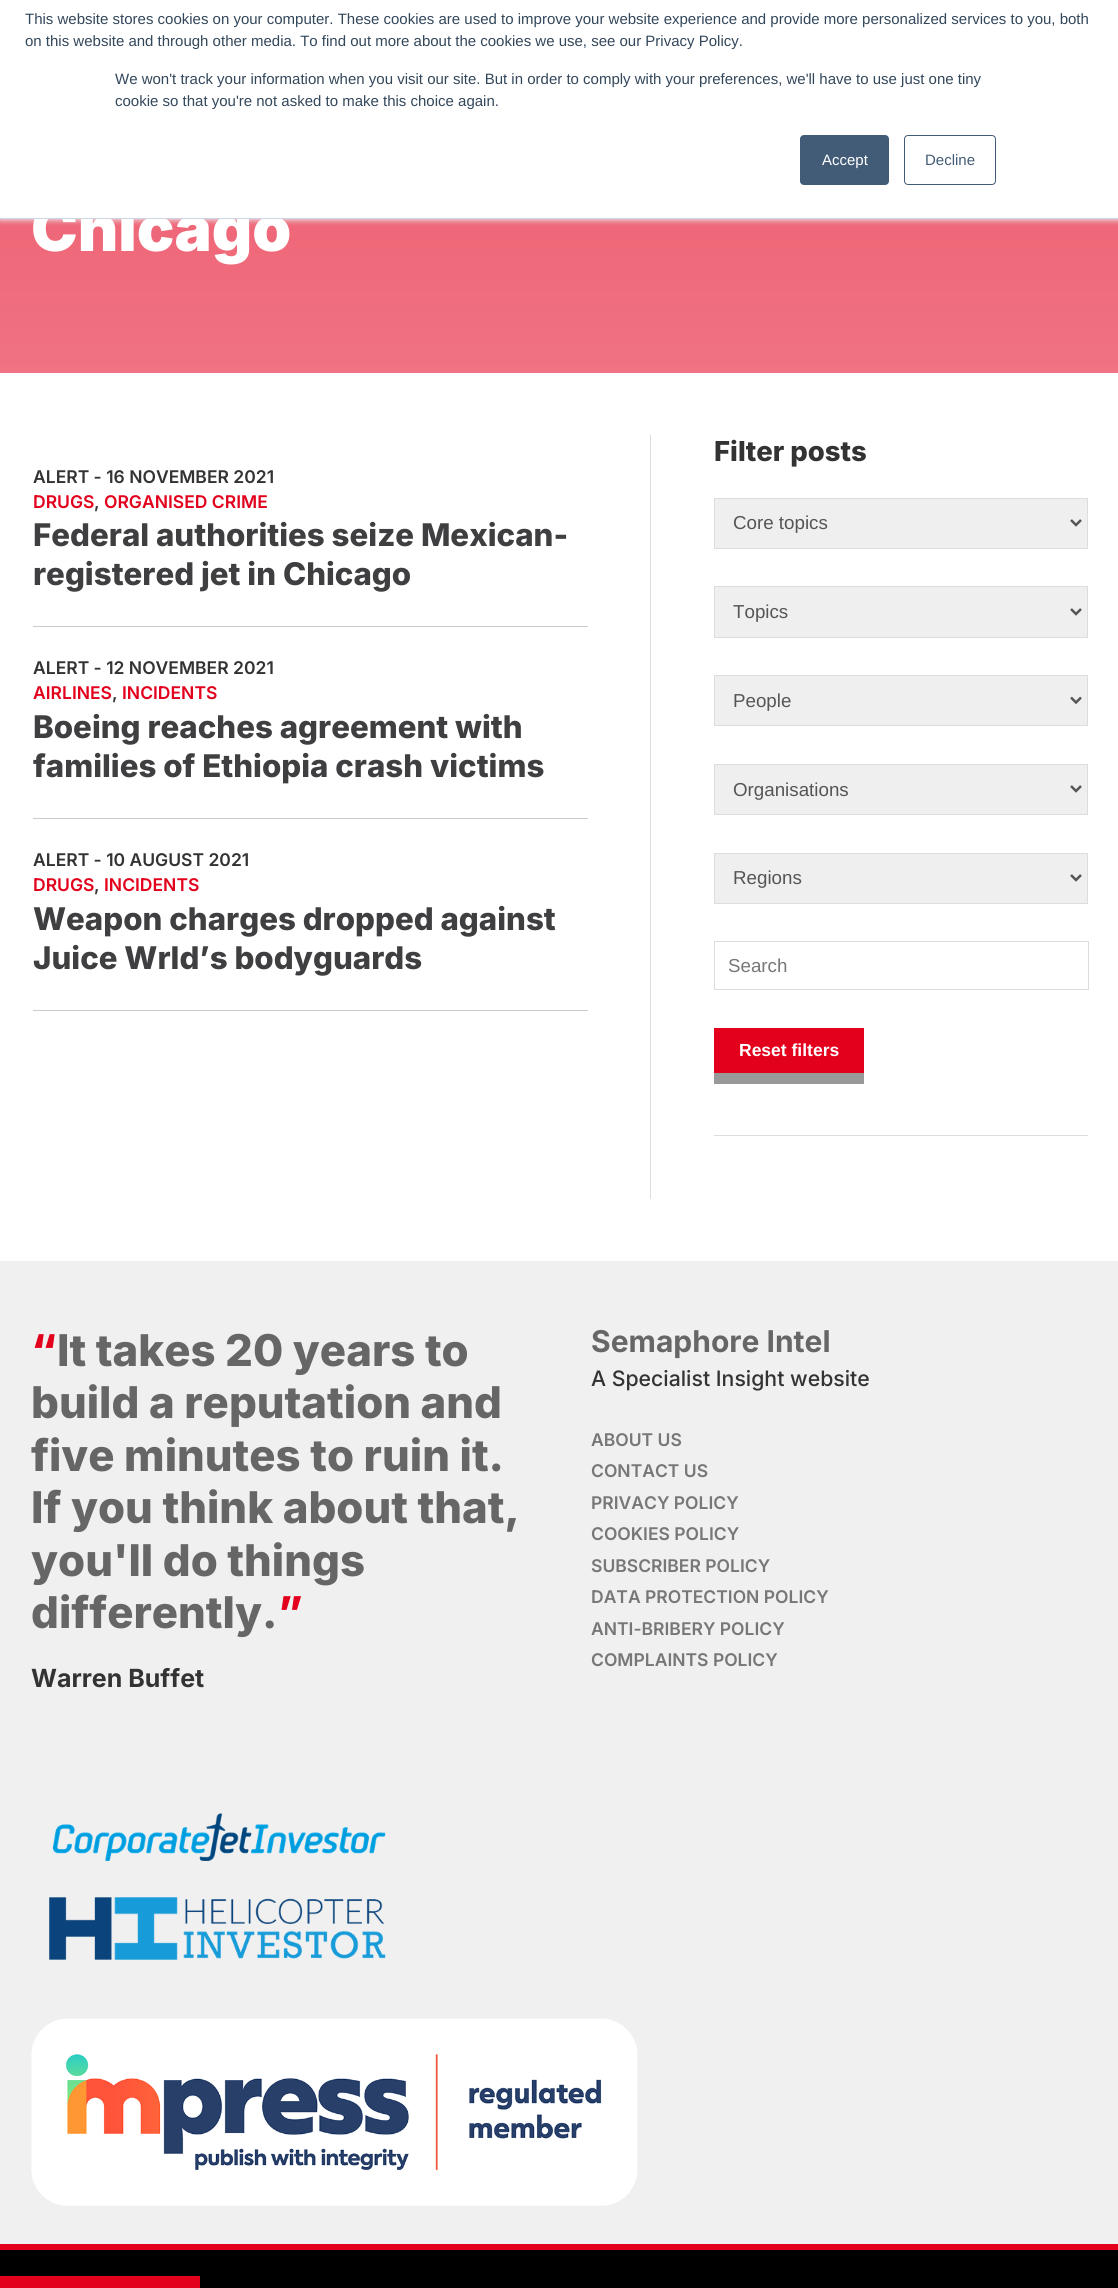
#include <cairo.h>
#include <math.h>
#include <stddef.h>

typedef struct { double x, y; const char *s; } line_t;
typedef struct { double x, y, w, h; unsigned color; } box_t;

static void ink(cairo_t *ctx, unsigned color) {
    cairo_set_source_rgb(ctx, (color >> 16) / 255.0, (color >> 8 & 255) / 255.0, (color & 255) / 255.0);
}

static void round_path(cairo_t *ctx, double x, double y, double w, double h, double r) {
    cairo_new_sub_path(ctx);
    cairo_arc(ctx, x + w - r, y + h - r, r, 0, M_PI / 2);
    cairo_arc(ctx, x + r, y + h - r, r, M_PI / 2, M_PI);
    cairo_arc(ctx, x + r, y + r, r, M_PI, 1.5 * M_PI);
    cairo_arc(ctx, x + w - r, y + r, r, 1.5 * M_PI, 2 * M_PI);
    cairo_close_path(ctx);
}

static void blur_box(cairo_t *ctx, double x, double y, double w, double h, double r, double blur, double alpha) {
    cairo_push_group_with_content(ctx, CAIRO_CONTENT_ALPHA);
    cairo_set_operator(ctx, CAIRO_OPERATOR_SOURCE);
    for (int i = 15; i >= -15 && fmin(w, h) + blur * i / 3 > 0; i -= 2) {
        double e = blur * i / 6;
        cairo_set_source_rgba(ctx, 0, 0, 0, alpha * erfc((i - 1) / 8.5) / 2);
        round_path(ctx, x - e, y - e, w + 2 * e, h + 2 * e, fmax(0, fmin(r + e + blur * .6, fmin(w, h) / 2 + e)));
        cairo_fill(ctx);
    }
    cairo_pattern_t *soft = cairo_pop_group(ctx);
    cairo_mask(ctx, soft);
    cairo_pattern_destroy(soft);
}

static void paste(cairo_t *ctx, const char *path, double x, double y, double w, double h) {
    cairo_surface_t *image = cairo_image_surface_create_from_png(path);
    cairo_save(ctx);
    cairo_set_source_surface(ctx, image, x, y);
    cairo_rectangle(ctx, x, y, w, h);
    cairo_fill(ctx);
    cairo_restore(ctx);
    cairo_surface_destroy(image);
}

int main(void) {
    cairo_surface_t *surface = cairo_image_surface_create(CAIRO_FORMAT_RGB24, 1118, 2288);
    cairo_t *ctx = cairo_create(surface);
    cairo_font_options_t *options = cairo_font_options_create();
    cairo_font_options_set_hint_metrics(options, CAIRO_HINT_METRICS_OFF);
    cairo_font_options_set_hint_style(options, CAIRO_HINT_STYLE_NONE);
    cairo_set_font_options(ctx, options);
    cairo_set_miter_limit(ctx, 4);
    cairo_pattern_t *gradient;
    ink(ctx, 0xFFFFFF);
    cairo_paint(ctx);
    gradient = cairo_pattern_create_linear(559, 60, 559, 373);
    cairo_pattern_add_color_stop_rgba(gradient, 0, 0.929, 0.353, 0.424, 1);
    cairo_pattern_add_color_stop_rgba(gradient, 1, 0.941, 0.451, 0.514, 1);
    cairo_set_source(ctx, gradient);
    cairo_pattern_destroy(gradient);
    cairo_rectangle(ctx, 0, 219, 1118, 154);
    cairo_fill(ctx);
    ink(ctx, 0xEAF0F6);
    blur_box(ctx, 0, -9, 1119, 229, 0, 3, 1);
    ink(ctx, 0xFFFFFF);
    cairo_rectangle(ctx, 0, 0, 1118, 218);
    cairo_fill(ctx);
    cairo_select_font_face(ctx, "Inter Black", CAIRO_FONT_SLANT_NORMAL, CAIRO_FONT_WEIGHT_NORMAL);
    cairo_set_font_size(ctx, 62.5);
    cairo_move_to(ctx, 31, 251);
    cairo_show_text(ctx, "Chicago");
    ink(ctx, 0xCBD6E2);
    cairo_rectangle(ctx, 0, 218, 1118, 1);
    cairo_fill(ctx);
    cairo_select_font_face(ctx, "Liberation Sans", CAIRO_FONT_SLANT_NORMAL, CAIRO_FONT_WEIGHT_NORMAL);
    cairo_set_font_size(ctx, 15);
    ink(ctx, 0x33475B);
    {
        static const line_t items[] = {
            {25, 24, "This website stores cookies on your computer. These cookies are used to improve your website experience and provide more personalized services to you, both"},
            {25, 46, "on this website and through other media. To find out more about the cookies we use, see our Privacy Policy."},
            {115, 84, "We won't track your information when you visit our site. But in order to comply with your preferences, we'll have to use just one tiny"},
            {115, 106, "cookie so that you're not asked to make this choice again."},
        };
        for (size_t i = 0; i < sizeof items / sizeof *items; i++) {
            cairo_move_to(ctx, items[i].x, items[i].y);
            cairo_show_text(ctx, items[i].s);
        }
    }
    ink(ctx, 0x425B76);
    round_path(ctx, 800.5, 135.5, 88, 49, 3.5);
    cairo_fill_preserve(ctx);
    cairo_set_line_width(ctx, 1);
    cairo_stroke(ctx);
    ink(ctx, 0xFFFFFF);
    cairo_move_to(ctx, 822, 165);
    cairo_show_text(ctx, "Accept");
    round_path(ctx, 904.5, 135.5, 91, 49, 3.5);
    ink(ctx, 0x425B76);
    cairo_stroke(ctx);
    cairo_move_to(ctx, 925, 165);
    cairo_show_text(ctx, "Decline");
    ink(ctx, 0xCCCCCC);
    cairo_rectangle(ctx, 33, 626, 555, 1);
    cairo_fill(ctx);
    cairo_select_font_face(ctx, "Inter SemiBold", CAIRO_FONT_SLANT_NORMAL, CAIRO_FONT_WEIGHT_NORMAL);
    cairo_set_font_size(ctx, 17.5);
    ink(ctx, 0x333333);
    cairo_move_to(ctx, 33, 483);
    cairo_show_text(ctx, "ALERT - 16 NOVEMBER 2021");
    ink(ctx, 0xE2001C);
    cairo_move_to(ctx, 33, 508);
    cairo_show_text(ctx, "DRUGS");
    ink(ctx, 0x333333);
    cairo_move_to(ctx, 94, 508);
    cairo_show_text(ctx, ",");
    ink(ctx, 0xE2001C);
    cairo_move_to(ctx, 104, 508);
    cairo_show_text(ctx, "ORGANISED CRIME");
    cairo_select_font_face(ctx, "Inter ExtraBold", CAIRO_FONT_SLANT_NORMAL, CAIRO_FONT_WEIGHT_NORMAL);
    cairo_set_font_size(ctx, 31.25);
    ink(ctx, 0x3F3E40);
    cairo_move_to(ctx, 33, 546);
    cairo_show_text(ctx, "Federal authorities seize Mexican-");
    cairo_move_to(ctx, 33, 585);
    cairo_show_text(ctx, "registered jet in Chicago");
    ink(ctx, 0xCCCCCC);
    cairo_rectangle(ctx, 33, 818, 555, 1);
    cairo_fill(ctx);
    cairo_select_font_face(ctx, "Inter SemiBold", CAIRO_FONT_SLANT_NORMAL, CAIRO_FONT_WEIGHT_NORMAL);
    cairo_set_font_size(ctx, 17.5);
    ink(ctx, 0x333333);
    cairo_move_to(ctx, 33, 674);
    cairo_show_text(ctx, "ALERT - 12 NOVEMBER 2021");
    ink(ctx, 0xE2001C);
    cairo_move_to(ctx, 33, 699);
    cairo_show_text(ctx, "AIRLINES");
    ink(ctx, 0x333333);
    cairo_move_to(ctx, 112, 699);
    cairo_show_text(ctx, ",");
    ink(ctx, 0xE2001C);
    cairo_move_to(ctx, 122, 699);
    cairo_show_text(ctx, "INCIDENTS");
    cairo_select_font_face(ctx, "Inter ExtraBold", CAIRO_FONT_SLANT_NORMAL, CAIRO_FONT_WEIGHT_NORMAL);
    cairo_set_font_size(ctx, 31.25);
    ink(ctx, 0x3F3E40);
    cairo_move_to(ctx, 33, 738);
    cairo_show_text(ctx, "Boeing reaches agreement with");
    cairo_move_to(ctx, 33, 777);
    cairo_show_text(ctx, "families of Ethiopia crash victims");
    ink(ctx, 0xCCCCCC);
    cairo_rectangle(ctx, 33, 1010, 555, 1);
    cairo_fill(ctx);
    cairo_select_font_face(ctx, "Inter SemiBold", CAIRO_FONT_SLANT_NORMAL, CAIRO_FONT_WEIGHT_NORMAL);
    cairo_set_font_size(ctx, 17.5);
    ink(ctx, 0x333333);
    cairo_move_to(ctx, 33, 866);
    cairo_show_text(ctx, "ALERT - 10 AUGUST 2021");
    ink(ctx, 0xE2001C);
    cairo_move_to(ctx, 33, 891);
    cairo_show_text(ctx, "DRUGS");
    ink(ctx, 0x333333);
    cairo_move_to(ctx, 94, 891);
    cairo_show_text(ctx, ",");
    ink(ctx, 0xE2001C);
    cairo_move_to(ctx, 104, 891);
    cairo_show_text(ctx, "INCIDENTS");
    cairo_select_font_face(ctx, "Inter ExtraBold", CAIRO_FONT_SLANT_NORMAL, CAIRO_FONT_WEIGHT_NORMAL);
    cairo_set_font_size(ctx, 31.25);
    ink(ctx, 0x3F3E40);
    cairo_move_to(ctx, 33, 930);
    cairo_show_text(ctx, "Weapon charges dropped against");
    cairo_move_to(ctx, 33, 969);
    cairo_show_text(ctx, "Juice Wrld’s bodyguards");
    ink(ctx, 0xDDDDDD);
    cairo_rectangle(ctx, 650, 435, 1, 764);
    cairo_fill(ctx);
    cairo_rectangle(ctx, 714, 1135, 374, 1);
    cairo_fill(ctx);
    cairo_set_font_size(ctx, 27.5);
    ink(ctx, 0x333333);
    cairo_move_to(ctx, 714, 461);
    cairo_show_text(ctx, "Filter posts");
    ink(ctx, 0xEFEFEF);
    cairo_rectangle(ctx, 714.5, 498.5, 373, 50);
    cairo_fill_preserve(ctx);
    ink(ctx, 0xDDDDDD);
    cairo_stroke(ctx);
    cairo_new_path(ctx);
    cairo_move_to(ctx, 1071, 520);
    cairo_line_to(ctx, 1076, 525);
    cairo_line_to(ctx, 1081, 520);
    ink(ctx, 0x555555);
    cairo_set_line_width(ctx, 2.5);
    cairo_stroke(ctx);
    cairo_select_font_face(ctx, "Liberation Sans", CAIRO_FONT_SLANT_NORMAL, CAIRO_FONT_WEIGHT_NORMAL);
    cairo_set_font_size(ctx, 18.75);
    cairo_move_to(ctx, 733, 529);
    cairo_show_text(ctx, "Core topics");
    ink(ctx, 0xEFEFEF);
    cairo_rectangle(ctx, 714.5, 586.5, 373, 51);
    cairo_fill_preserve(ctx);
    ink(ctx, 0xDDDDDD);
    cairo_set_line_width(ctx, 1);
    cairo_stroke(ctx);
    cairo_new_path(ctx);
    cairo_move_to(ctx, 1071, 609);
    cairo_line_to(ctx, 1076, 614);
    cairo_line_to(ctx, 1081, 609);
    ink(ctx, 0x555555);
    cairo_set_line_width(ctx, 2.5);
    cairo_stroke(ctx);
    cairo_move_to(ctx, 733, 618);
    cairo_show_text(ctx, "Topics");
    ink(ctx, 0xEFEFEF);
    cairo_rectangle(ctx, 714.5, 675.5, 373, 50);
    cairo_fill_preserve(ctx);
    ink(ctx, 0xDDDDDD);
    cairo_set_line_width(ctx, 1);
    cairo_stroke(ctx);
    cairo_new_path(ctx);
    cairo_move_to(ctx, 1071, 697.5);
    cairo_line_to(ctx, 1076, 702.5);
    cairo_line_to(ctx, 1081, 697.5);
    ink(ctx, 0x555555);
    cairo_set_line_width(ctx, 2.5);
    cairo_stroke(ctx);
    cairo_move_to(ctx, 733, 707);
    cairo_show_text(ctx, "People");
    ink(ctx, 0xEFEFEF);
    cairo_rectangle(ctx, 714.5, 764.5, 373, 50);
    cairo_fill_preserve(ctx);
    ink(ctx, 0xDDDDDD);
    cairo_set_line_width(ctx, 1);
    cairo_stroke(ctx);
    cairo_new_path(ctx);
    cairo_move_to(ctx, 1071, 786);
    cairo_line_to(ctx, 1076, 791);
    cairo_line_to(ctx, 1081, 786);
    ink(ctx, 0x555555);
    cairo_set_line_width(ctx, 2.5);
    cairo_stroke(ctx);
    cairo_move_to(ctx, 733, 796);
    cairo_show_text(ctx, "Organisations");
    ink(ctx, 0xEFEFEF);
    cairo_rectangle(ctx, 714.5, 853.5, 373, 50);
    cairo_fill_preserve(ctx);
    ink(ctx, 0xDDDDDD);
    cairo_set_line_width(ctx, 1);
    cairo_stroke(ctx);
    cairo_new_path(ctx);
    cairo_move_to(ctx, 1071, 875);
    cairo_line_to(ctx, 1076, 880);
    cairo_line_to(ctx, 1081, 875);
    ink(ctx, 0x555555);
    cairo_set_line_width(ctx, 2.5);
    cairo_stroke(ctx);
    cairo_move_to(ctx, 733, 884);
    cairo_show_text(ctx, "Regions");
    cairo_rectangle(ctx, 714.5, 941.5, 374, 48);
    ink(ctx, 0xDDDDDD);
    cairo_set_line_width(ctx, 1);
    cairo_stroke(ctx);
    ink(ctx, 0x777777);
    cairo_move_to(ctx, 728, 972);
    cairo_show_text(ctx, "Search");
    ink(ctx, 0x999999);
    cairo_new_path(ctx);
    cairo_move_to(ctx, 714, 1072);
    cairo_line_to(ctx, 714, 1084);
    cairo_line_to(ctx, 864, 1084);
    cairo_line_to(ctx, 864, 1039);
    cairo_line_to(ctx, 864, 1072);
    cairo_close_path(ctx);
    cairo_fill(ctx);
    ink(ctx, 0xE3001C);
    cairo_rectangle(ctx, 714, 1028, 150, 45);
    cairo_fill(ctx);
    cairo_select_font_face(ctx, "Liberation Sans", CAIRO_FONT_SLANT_NORMAL, CAIRO_FONT_WEIGHT_BOLD);
    cairo_set_font_size(ctx, 17.5);
    ink(ctx, 0xFFFFFF);
    cairo_move_to(ctx, 739, 1056);
    cairo_show_text(ctx, "Reset filters");
    ink(ctx, 0xF0F0F0);
    cairo_rectangle(ctx, 0, 1261, 1118, 983);
    cairo_fill(ctx);
    cairo_select_font_face(ctx, "Inter ExtraBold", CAIRO_FONT_SLANT_NORMAL, CAIRO_FONT_WEIGHT_NORMAL);
    cairo_set_font_size(ctx, 43.75);
    ink(ctx, 0xE2001C);
    cairo_move_to(ctx, 31, 1366);
    cairo_show_text(ctx, "“");
    ink(ctx, 0x666666);
    {
        static const line_t items[] = {
            {57, 1366, "It takes 20 years to"},
            {31, 1418, "build a reputation and"},
            {31, 1471, "five minutes to ruin it."},
            {31, 1523, "If you think about that,"},
            {31, 1576, "you'll do things"},
            {31, 1628, "differently."},
        };
        for (size_t i = 0; i < sizeof items / sizeof *items; i++) {
            cairo_move_to(ctx, items[i].x, items[i].y);
            cairo_show_text(ctx, items[i].s);
        }
    }
    ink(ctx, 0xE2001C);
    cairo_move_to(ctx, 278, 1628);
    cairo_show_text(ctx, "”");
    cairo_select_font_face(ctx, "Inter", CAIRO_FONT_SLANT_NORMAL, CAIRO_FONT_WEIGHT_BOLD);
    cairo_set_font_size(ctx, 25);
    ink(ctx, 0x333333);
    cairo_move_to(ctx, 31, 1687);
    cairo_show_text(ctx, "Warren Buffet");
    cairo_set_font_size(ctx, 30);
    ink(ctx, 0x666666);
    cairo_move_to(ctx, 591, 1352);
    cairo_show_text(ctx, "Semaphore Intel");
    cairo_select_font_face(ctx, "Inter Medium", CAIRO_FONT_SLANT_NORMAL, CAIRO_FONT_WEIGHT_NORMAL);
    cairo_set_font_size(ctx, 21.25);
    ink(ctx, 0x333333);
    cairo_move_to(ctx, 591, 1386);
    cairo_show_text(ctx, "A Specialist Insight website");
    cairo_select_font_face(ctx, "Inter SemiBold", CAIRO_FONT_SLANT_NORMAL, CAIRO_FONT_WEIGHT_NORMAL);
    cairo_set_font_size(ctx, 17.5);
    ink(ctx, 0x777777);
    {
        static const line_t items[] = {
            {591, 1446, "ABOUT US"},
            {591, 1477, "CONTACT US"},
            {591, 1509, "PRIVACY POLICY"},
            {591, 1540, "COOKIES POLICY"},
            {591, 1572, "SUBSCRIBER POLICY"},
            {591, 1603, "DATA PROTECTION POLICY"},
            {591, 1635, "ANTI-BRIBERY POLICY"},
            {591, 1666, "COMPLAINTS POLICY"},
        };
        for (size_t i = 0; i < sizeof items / sizeof *items; i++) {
            cairo_move_to(ctx, items[i].x, items[i].y);
            cairo_show_text(ctx, items[i].s);
        }
    }
    paste(ctx, "media/1.png", 49, 1813, 337, 147);
    paste(ctx, "media/2.png", 31, 2018, 607, 188);
    {
        static const box_t items[] = {
            {0, 2250, 1118, 38, 0x000000},
            {0, 2244, 1118, 6, 0xE3001C},
            {0, 2276, 200, 12, 0xE3001C},
        };
        for (size_t i = 0; i < sizeof items / sizeof *items; i++) {
            ink(ctx, items[i].color);
            cairo_rectangle(ctx, items[i].x, items[i].y, items[i].w, items[i].h);
            cairo_fill(ctx);
        }
    }
    cairo_surface_write_to_png(surface, "image.png");
    cairo_font_options_destroy(options);
    cairo_destroy(ctx);
    cairo_surface_destroy(surface);
    return 0;
}
